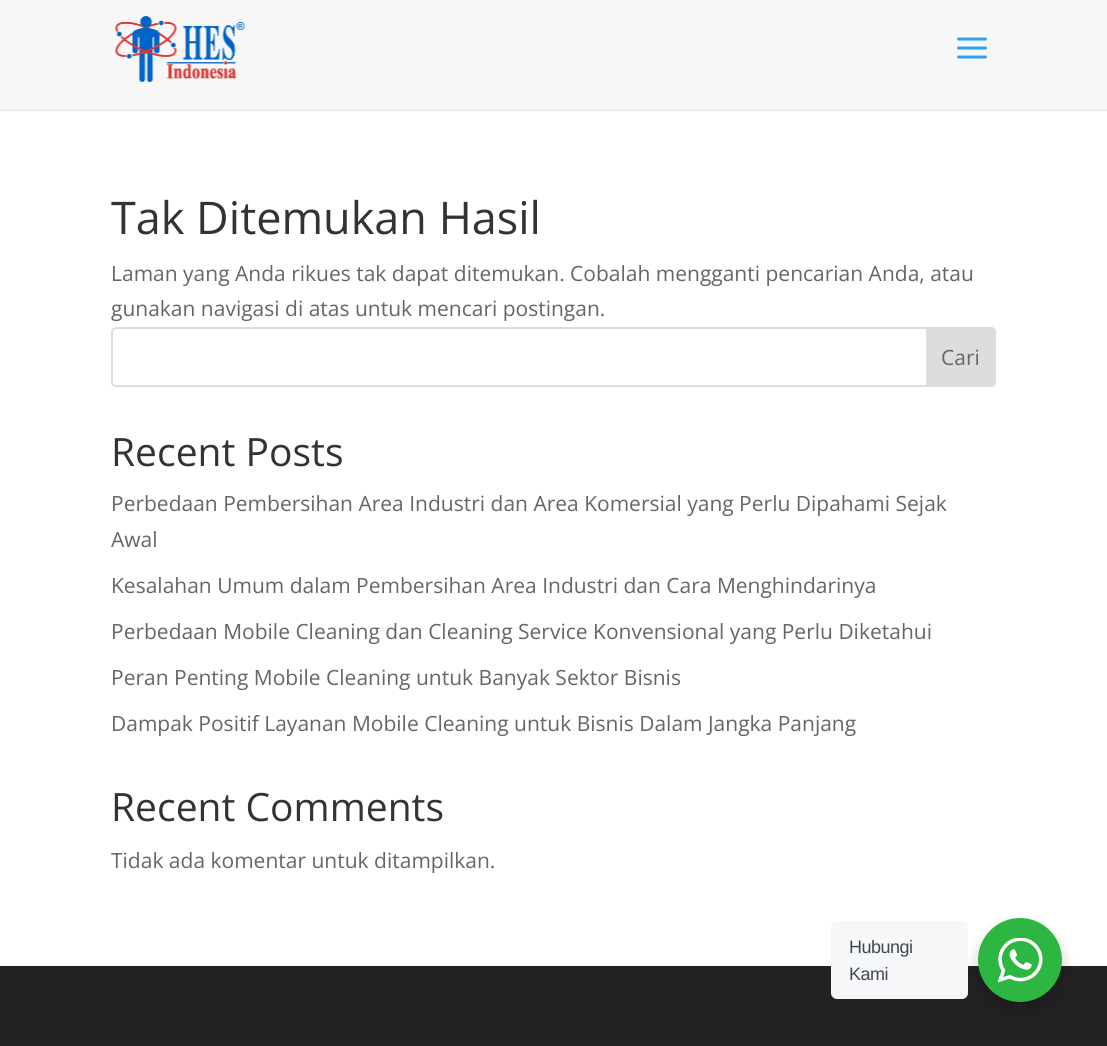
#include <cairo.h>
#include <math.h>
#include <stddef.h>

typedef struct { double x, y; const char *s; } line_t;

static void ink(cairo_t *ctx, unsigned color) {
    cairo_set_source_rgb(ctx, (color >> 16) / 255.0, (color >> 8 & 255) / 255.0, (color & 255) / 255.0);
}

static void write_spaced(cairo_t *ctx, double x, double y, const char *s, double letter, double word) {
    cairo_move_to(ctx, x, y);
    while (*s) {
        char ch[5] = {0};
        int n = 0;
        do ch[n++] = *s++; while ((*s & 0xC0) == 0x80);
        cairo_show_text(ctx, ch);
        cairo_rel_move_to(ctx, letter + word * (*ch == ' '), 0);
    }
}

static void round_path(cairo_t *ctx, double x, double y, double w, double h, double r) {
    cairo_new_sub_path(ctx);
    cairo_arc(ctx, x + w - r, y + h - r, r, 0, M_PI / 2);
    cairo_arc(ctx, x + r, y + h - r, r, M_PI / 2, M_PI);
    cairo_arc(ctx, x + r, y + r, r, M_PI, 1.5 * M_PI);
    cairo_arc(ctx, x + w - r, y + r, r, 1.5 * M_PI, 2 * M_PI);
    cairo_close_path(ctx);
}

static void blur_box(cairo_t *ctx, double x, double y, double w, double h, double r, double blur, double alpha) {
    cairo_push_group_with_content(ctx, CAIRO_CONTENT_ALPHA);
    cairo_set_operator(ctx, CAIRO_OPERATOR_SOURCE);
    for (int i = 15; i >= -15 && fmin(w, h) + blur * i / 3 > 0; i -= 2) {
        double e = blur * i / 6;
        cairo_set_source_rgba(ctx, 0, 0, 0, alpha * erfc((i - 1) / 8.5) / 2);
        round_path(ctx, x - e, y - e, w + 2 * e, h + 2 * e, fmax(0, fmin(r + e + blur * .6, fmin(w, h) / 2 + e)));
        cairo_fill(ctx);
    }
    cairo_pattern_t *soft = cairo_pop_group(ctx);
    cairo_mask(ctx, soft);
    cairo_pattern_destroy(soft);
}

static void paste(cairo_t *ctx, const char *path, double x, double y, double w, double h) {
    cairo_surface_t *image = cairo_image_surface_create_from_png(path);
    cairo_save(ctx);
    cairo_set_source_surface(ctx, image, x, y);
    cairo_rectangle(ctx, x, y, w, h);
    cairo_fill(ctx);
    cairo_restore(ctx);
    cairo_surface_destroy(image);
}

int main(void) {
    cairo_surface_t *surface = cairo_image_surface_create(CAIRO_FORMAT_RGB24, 1107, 1046);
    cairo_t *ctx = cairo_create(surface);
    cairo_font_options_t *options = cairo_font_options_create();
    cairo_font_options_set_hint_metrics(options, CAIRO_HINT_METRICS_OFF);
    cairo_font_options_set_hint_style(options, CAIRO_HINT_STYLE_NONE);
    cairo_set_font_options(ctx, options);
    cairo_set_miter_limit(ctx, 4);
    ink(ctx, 0xFFFFFF);
    cairo_paint(ctx);
    ink(ctx, 0xE6E6E6);
    cairo_rectangle(ctx, 0, 110, 1107, 1);
    cairo_fill(ctx);
    ink(ctx, 0xF7F7F7);
    cairo_rectangle(ctx, 0, 0, 1107, 110);
    cairo_fill(ctx);
    paste(ctx, "media/1.png", 115, 16, 130, 66);
    paste(ctx, "media/2.png", 957, 37, 30, 22);
    cairo_select_font_face(ctx, "Open Sans", CAIRO_FONT_SLANT_NORMAL, CAIRO_FONT_WEIGHT_NORMAL);
    cairo_set_font_size(ctx, 45);
    ink(ctx, 0x333333);
    cairo_move_to(ctx, 111, 234);
    cairo_show_text(ctx, "Tak Ditemukan Hasil");
    cairo_set_font_size(ctx, 21);
    ink(ctx, 0x666666);
    cairo_move_to(ctx, 111, 281);
    cairo_show_text(ctx, "Laman yang Anda rikues tak dapat ditemukan. Cobalah mengganti pencarian Anda, atau");
    cairo_move_to(ctx, 111, 316);
    cairo_show_text(ctx, "gunakan navigasi di atas untuk mencari postingan.");
    round_path(ctx, 112, 328, 883, 58, 4);
    ink(ctx, 0xDDDDDD);
    cairo_stroke(ctx);
    cairo_new_path(ctx);
    cairo_move_to(ctx, 927, 328);
    cairo_line_to(ctx, 991, 328);
    cairo_curve_to(ctx, 993, 328, 995, 330, 995, 332);
    cairo_line_to(ctx, 995, 382);
    cairo_curve_to(ctx, 995, 384, 993, 386, 991, 386);
    cairo_line_to(ctx, 927, 386);
    cairo_close_path(ctx);
    cairo_fill_preserve(ctx);
    cairo_stroke(ctx);
    ink(ctx, 0x666666);
    cairo_move_to(ctx, 941, 365);
    cairo_show_text(ctx, "Cari");
    cairo_set_font_size(ctx, 39);
    ink(ctx, 0x333333);
    cairo_move_to(ctx, 111, 466);
    cairo_show_text(ctx, "Recent Posts");
    cairo_set_font_size(ctx, 21);
    ink(ctx, 0x666666);
    {
        static const line_t items[] = {
            {111, 511, "Perbedaan Pembersihan Area Industri dan Area Komersial yang Perlu Dipahami Sejak"},
            {111, 547, "Awal"},
            {111, 593, "Kesalahan Umum dalam Pembersihan Area Industri dan Cara Menghindarinya"},
            {111, 639, "Perbedaan Mobile Cleaning dan Cleaning Service Konvensional yang Perlu Diketahui"},
            {111, 685, "Peran Penting Mobile Cleaning untuk Banyak Sektor Bisnis"},
            {111, 731, "Dampak Positif Layanan Mobile Cleaning untuk Bisnis Dalam Jangka Panjang"},
        };
        for (size_t i = 0; i < sizeof items / sizeof *items; i++) {
            cairo_move_to(ctx, items[i].x, items[i].y);
            cairo_show_text(ctx, items[i].s);
        }
    }
    cairo_set_font_size(ctx, 39);
    ink(ctx, 0x333333);
    cairo_move_to(ctx, 111, 821);
    cairo_show_text(ctx, "Recent Comments");
    cairo_set_font_size(ctx, 21);
    ink(ctx, 0x666666);
    cairo_move_to(ctx, 111, 868);
    cairo_show_text(ctx, "Tidak ada komentar untuk ditampilkan.");
    ink(ctx, 0x222222);
    cairo_rectangle(ctx, 0, 966, 1107, 80);
    cairo_fill(ctx);
    ink(ctx, 0x000000);
    blur_box(ctx, 975, 924, 90, 90, 45, 6, 0.14);
    ink(ctx, 0xF5F7F9);
    round_path(ctx, 831, 921, 137, 78, 6);
    cairo_fill(ctx);
    cairo_select_font_face(ctx, "Liberation Sans", CAIRO_FONT_SLANT_NORMAL, CAIRO_FONT_WEIGHT_NORMAL);
    cairo_set_font_size(ctx, 18);
    ink(ctx, 0x43474E);
    write_spaced(ctx, 849, 953, "Hubungi", -0.5, 0);
    write_spaced(ctx, 849, 980, "Kami", -0.5, 0);
    ink(ctx, 0x2DB742);
    cairo_new_path(ctx);
    cairo_arc(ctx, 1020, 960, 42, 0, 2 * M_PI);
    cairo_fill(ctx);
    paste(ctx, "media/3.png", 998, 938, 45, 45);
    cairo_surface_write_to_png(surface, "image.png");
    cairo_font_options_destroy(options);
    cairo_destroy(ctx);
    cairo_surface_destroy(surface);
    return 0;
}
